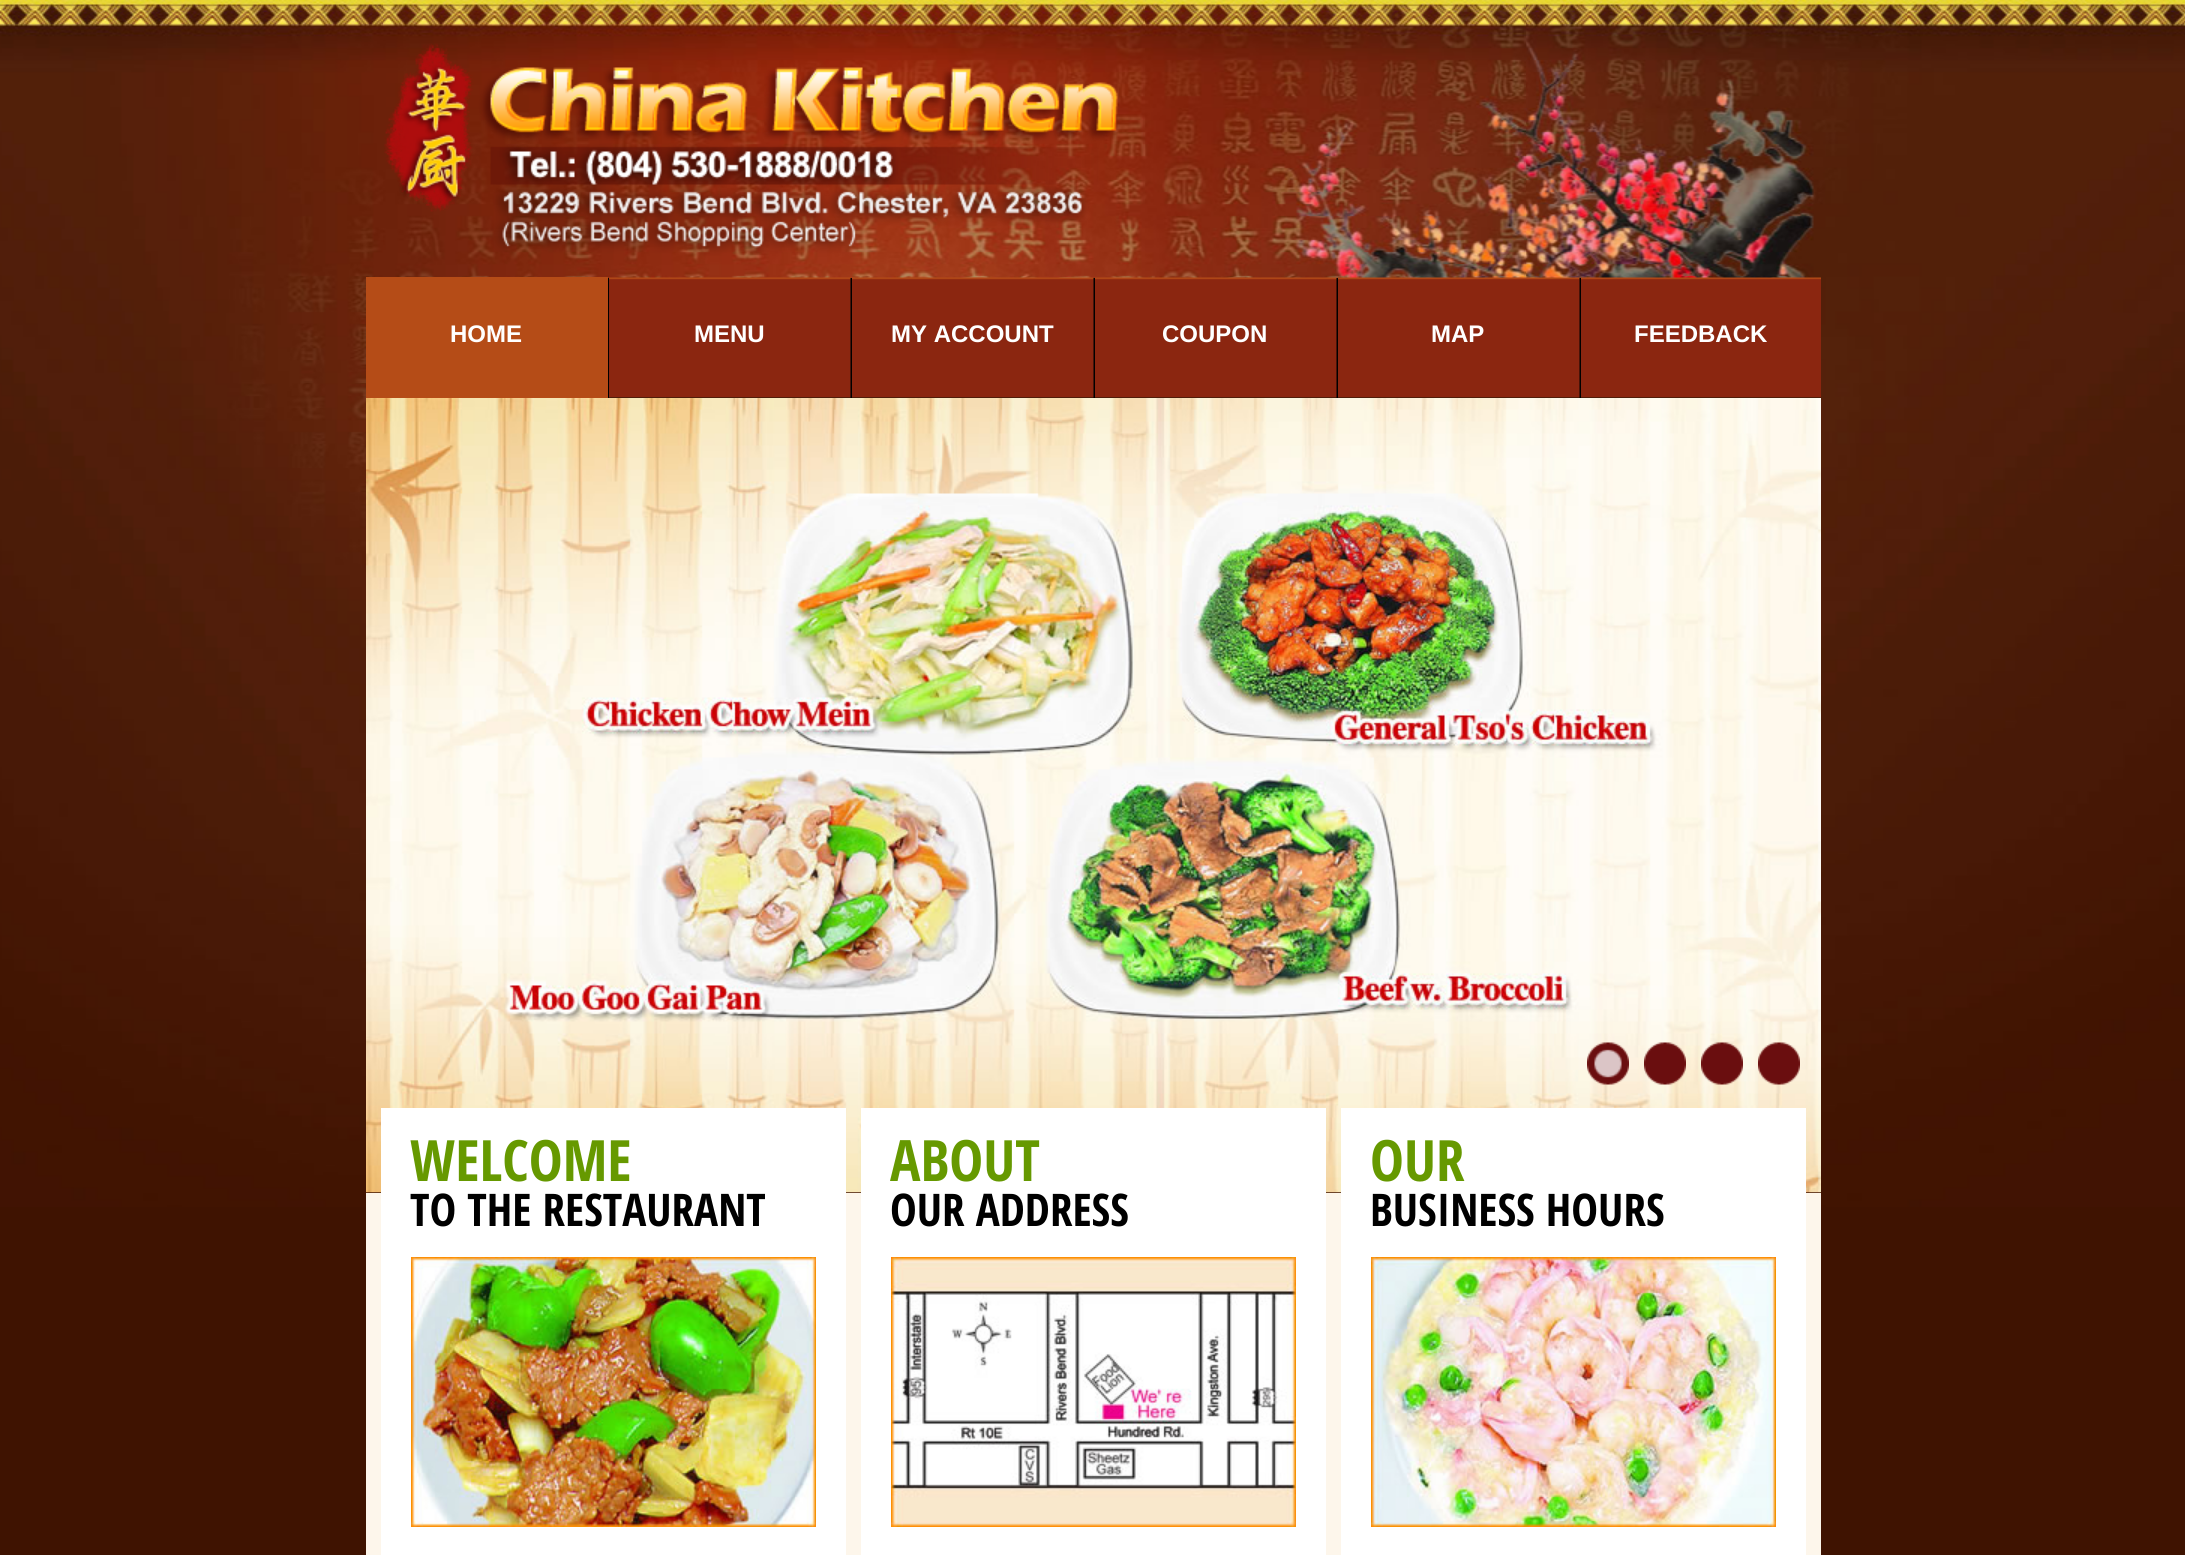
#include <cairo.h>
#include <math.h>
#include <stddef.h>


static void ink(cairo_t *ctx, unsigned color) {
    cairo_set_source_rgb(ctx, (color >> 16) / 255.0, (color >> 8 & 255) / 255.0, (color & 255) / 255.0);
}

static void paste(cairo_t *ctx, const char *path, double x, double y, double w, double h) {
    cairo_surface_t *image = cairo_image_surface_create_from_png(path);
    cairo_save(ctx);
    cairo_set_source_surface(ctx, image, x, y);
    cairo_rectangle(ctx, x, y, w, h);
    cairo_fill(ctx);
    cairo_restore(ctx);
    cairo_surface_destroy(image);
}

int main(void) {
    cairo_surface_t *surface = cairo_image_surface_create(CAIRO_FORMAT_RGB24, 2185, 1555);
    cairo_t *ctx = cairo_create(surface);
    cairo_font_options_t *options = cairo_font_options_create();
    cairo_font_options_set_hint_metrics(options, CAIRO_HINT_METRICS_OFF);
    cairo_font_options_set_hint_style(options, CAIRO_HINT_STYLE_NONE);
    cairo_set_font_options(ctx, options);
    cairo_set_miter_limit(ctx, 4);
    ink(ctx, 0x3F1301);
    cairo_paint(ctx);
    paste(ctx, "media/1.png", 0, 0, 2185, 1207);
    paste(ctx, "media/2.png", 384, 43, 734, 213);
    ink(ctx, 0x000000);
    cairo_rectangle(ctx, 608, 278, 1213, 120);
    cairo_fill(ctx);
    ink(ctx, 0xB54C17);
    cairo_rectangle(ctx, 366, 277, 242, 121);
    cairo_fill(ctx);
    cairo_select_font_face(ctx, "Liberation Sans", CAIRO_FONT_SLANT_NORMAL, CAIRO_FONT_WEIGHT_BOLD);
    cairo_set_font_size(ctx, 24);
    ink(ctx, 0xFFFFFF);
    cairo_move_to(ctx, 450, 342);
    cairo_show_text(ctx, "HOME");
    paste(ctx, "media/3.png", 609, 277, 242, 121);
    cairo_move_to(ctx, 694, 342);
    cairo_show_text(ctx, "MENU");
    paste(ctx, "media/4.png", 852, 277, 242, 121);
    cairo_move_to(ctx, 891, 342);
    cairo_show_text(ctx, "MY ACCOUNT");
    paste(ctx, "media/5.png", 1095, 277, 242, 121);
    cairo_move_to(ctx, 1162, 342);
    cairo_show_text(ctx, "COUPON");
    paste(ctx, "media/6.png", 1338, 277, 242, 121);
    cairo_move_to(ctx, 1431, 342);
    cairo_show_text(ctx, "MAP");
    paste(ctx, "media/7.png", 1581, 277, 240, 121);
    cairo_move_to(ctx, 1634, 342);
    cairo_show_text(ctx, "FEEDBACK");
    paste(ctx, "media/8.png", 366, 398, 1455, 795);
    paste(ctx, "media/9.png", 1587, 1042, 42, 43);
    paste(ctx, "media/10.png", 1644, 1042, 42, 43);
    paste(ctx, "media/11.png", 1701, 1042, 42, 43);
    paste(ctx, "media/12.png", 1758, 1042, 42, 43);
    ink(ctx, 0xFDF6EB);
    cairo_rectangle(ctx, 366, 1193, 1455, 362);
    cairo_fill(ctx);
    ink(ctx, 0xFFFFFF);
    cairo_rectangle(ctx, 381, 1108, 465, 447);
    cairo_fill(ctx);
    cairo_select_font_face(ctx, "Open Sans Condensed", CAIRO_FONT_SLANT_NORMAL, CAIRO_FONT_WEIGHT_BOLD);
    cairo_set_font_size(ctx, 57);
    ink(ctx, 0x669900);
    cairo_move_to(ctx, 410, 1181);
    cairo_show_text(ctx, "WELCOME");
    cairo_set_font_size(ctx, 45);
    ink(ctx, 0x000000);
    cairo_move_to(ctx, 410, 1226);
    cairo_show_text(ctx, "TO THE RESTAURANT");
    paste(ctx, "media/13.png", 411, 1257, 405, 270);
    ink(ctx, 0xFFFFFF);
    cairo_rectangle(ctx, 861, 1108, 465, 447);
    cairo_fill(ctx);
    cairo_set_font_size(ctx, 57);
    ink(ctx, 0x669900);
    cairo_move_to(ctx, 890, 1181);
    cairo_show_text(ctx, "ABOUT");
    cairo_set_font_size(ctx, 45);
    ink(ctx, 0x000000);
    cairo_move_to(ctx, 890, 1226);
    cairo_show_text(ctx, "OUR ADDRESS");
    paste(ctx, "media/14.png", 891, 1257, 405, 270);
    ink(ctx, 0xFFFFFF);
    cairo_rectangle(ctx, 1341, 1108, 465, 447);
    cairo_fill(ctx);
    cairo_set_font_size(ctx, 57);
    ink(ctx, 0x669900);
    cairo_move_to(ctx, 1370, 1181);
    cairo_show_text(ctx, "OUR");
    cairo_set_font_size(ctx, 45);
    ink(ctx, 0x000000);
    cairo_move_to(ctx, 1370, 1226);
    cairo_show_text(ctx, "BUSINESS HOURS");
    paste(ctx, "media/15.png", 1371, 1257, 405, 270);
    cairo_surface_write_to_png(surface, "image.png");
    cairo_font_options_destroy(options);
    cairo_destroy(ctx);
    cairo_surface_destroy(surface);
    return 0;
}
